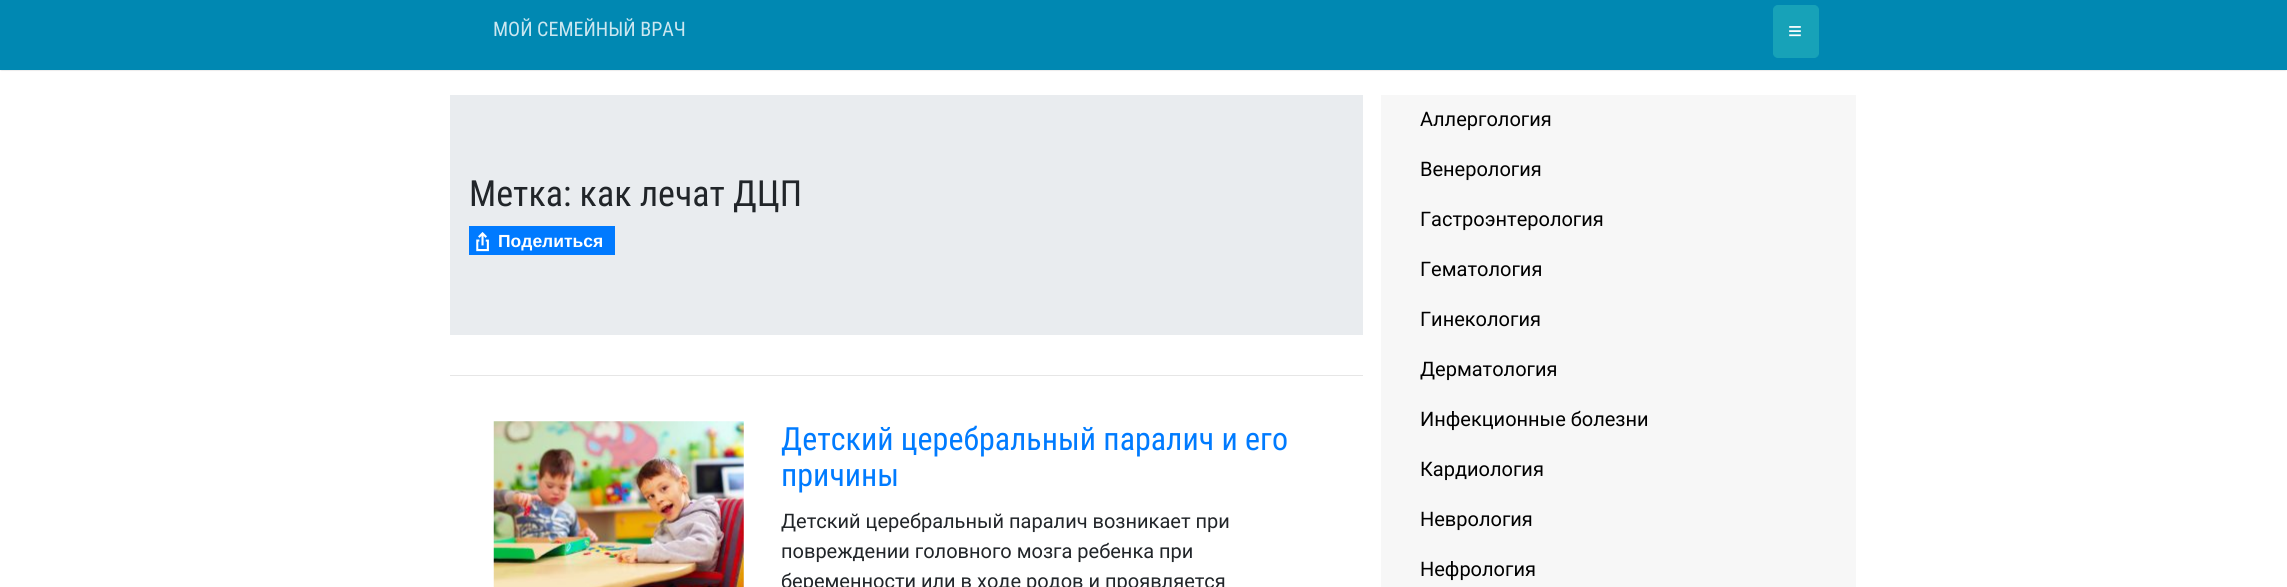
#include <cairo.h>
#include <math.h>
#include <stddef.h>

typedef struct { double x, y; const char *s; } line_t;

static void ink(cairo_t *ctx, unsigned color) {
    cairo_set_source_rgb(ctx, (color >> 16) / 255.0, (color >> 8 & 255) / 255.0, (color & 255) / 255.0);
}

static void round_path(cairo_t *ctx, double x, double y, double w, double h, double r) {
    cairo_new_sub_path(ctx);
    cairo_arc(ctx, x + w - r, y + h - r, r, 0, M_PI / 2);
    cairo_arc(ctx, x + r, y + h - r, r, M_PI / 2, M_PI);
    cairo_arc(ctx, x + r, y + r, r, M_PI, 1.5 * M_PI);
    cairo_arc(ctx, x + w - r, y + r, r, 1.5 * M_PI, 2 * M_PI);
    cairo_close_path(ctx);
}

static void blur_box(cairo_t *ctx, double x, double y, double w, double h, double r, double blur, double alpha) {
    cairo_push_group_with_content(ctx, CAIRO_CONTENT_ALPHA);
    cairo_set_operator(ctx, CAIRO_OPERATOR_SOURCE);
    for (int i = 15; i >= -15 && fmin(w, h) + blur * i / 3 > 0; i -= 2) {
        double e = blur * i / 6;
        cairo_set_source_rgba(ctx, 0, 0, 0, alpha * erfc((i - 1) / 8.5) / 2);
        round_path(ctx, x - e, y - e, w + 2 * e, h + 2 * e, fmax(0, fmin(r + e + blur * .6, fmin(w, h) / 2 + e)));
        cairo_fill(ctx);
    }
    cairo_pattern_t *soft = cairo_pop_group(ctx);
    cairo_mask(ctx, soft);
    cairo_pattern_destroy(soft);
}

static void paste(cairo_t *ctx, const char *path, double x, double y, double w, double h) {
    cairo_surface_t *image = cairo_image_surface_create_from_png(path);
    cairo_save(ctx);
    cairo_set_source_surface(ctx, image, x, y);
    cairo_rectangle(ctx, x, y, w, h);
    cairo_fill(ctx);
    cairo_restore(ctx);
    cairo_surface_destroy(image);
}

int main(void) {
    cairo_surface_t *surface = cairo_image_surface_create(CAIRO_FORMAT_RGB24, 2287, 587);
    cairo_t *ctx = cairo_create(surface);
    cairo_font_options_t *options = cairo_font_options_create();
    cairo_font_options_set_hint_metrics(options, CAIRO_HINT_METRICS_OFF);
    cairo_font_options_set_hint_style(options, CAIRO_HINT_STYLE_NONE);
    cairo_set_font_options(ctx, options);
    cairo_set_miter_limit(ctx, 4);
    ink(ctx, 0xFFFFFF);
    cairo_paint(ctx);
    ink(ctx, 0x333333);
    blur_box(ctx, 1, 1, 2285, 68, 0, 1, 1);
    ink(ctx, 0x0088B2);
    cairo_rectangle(ctx, 0, 0, 2287, 70);
    cairo_fill(ctx);
    cairo_select_font_face(ctx, "Roboto Condensed", CAIRO_FONT_SLANT_NORMAL, CAIRO_FONT_WEIGHT_NORMAL);
    cairo_set_font_size(ctx, 20);
    ink(ctx, 0xCCE7F0);
    cairo_move_to(ctx, 493, 36);
    cairo_show_text(ctx, "МОЙ СЕМЕЙНЫЙ ВРАЧ");
    ink(ctx, 0x17A2B8);
    round_path(ctx, 1773.5, 5.5, 45, 52, 4.5);
    cairo_fill_preserve(ctx);
    cairo_set_line_width(ctx, 1);
    cairo_stroke(ctx);
    cairo_select_font_face(ctx, "Liberation Sans", CAIRO_FONT_SLANT_NORMAL, CAIRO_FONT_WEIGHT_NORMAL);
    cairo_set_font_size(ctx, 24);
    ink(ctx, 0xFFFFFF);
    cairo_move_to(ctx, 1788, 39);
    cairo_show_text(ctx, "≡");
    ink(ctx, 0xE9ECEF);
    cairo_rectangle(ctx, 450, 95, 913, 240);
    cairo_fill(ctx);
    cairo_select_font_face(ctx, "Roboto Condensed", CAIRO_FONT_SLANT_NORMAL, CAIRO_FONT_WEIGHT_NORMAL);
    cairo_set_font_size(ctx, 36);
    ink(ctx, 0x212529);
    cairo_move_to(ctx, 469, 206);
    cairo_show_text(ctx, "Метка: как лечат ДЦП");
    ink(ctx, 0x007AFF);
    cairo_rectangle(ctx, 469, 226, 146, 29);
    cairo_fill(ctx);
    paste(ctx, "media/1.png", 476, 232, 13, 20);
    cairo_select_font_face(ctx, "Liberation Sans", CAIRO_FONT_SLANT_NORMAL, CAIRO_FONT_WEIGHT_BOLD);
    cairo_set_font_size(ctx, 17.5);
    ink(ctx, 0xFFFFFF);
    cairo_move_to(ctx, 498, 247);
    cairo_show_text(ctx, "Поделиться");
    ink(ctx, 0xE6E6E6);
    cairo_rectangle(ctx, 450, 375, 913, 1);
    cairo_fill(ctx);
    paste(ctx, "media/2.png", 493, 421, 251, 166);
    cairo_select_font_face(ctx, "Roboto Condensed", CAIRO_FONT_SLANT_NORMAL, CAIRO_FONT_WEIGHT_NORMAL);
    cairo_set_font_size(ctx, 32);
    ink(ctx, 0x007BFF);
    cairo_move_to(ctx, 781, 450);
    cairo_show_text(ctx, "Детский церебральный паралич и его");
    cairo_move_to(ctx, 781, 486);
    cairo_show_text(ctx, "причины");
    cairo_select_font_face(ctx, "Roboto", CAIRO_FONT_SLANT_NORMAL, CAIRO_FONT_WEIGHT_NORMAL);
    cairo_set_font_size(ctx, 20);
    ink(ctx, 0x212529);
    {
        static const line_t items[] = {
            {781, 528, "Детский церебральный паралич возникает при"},
            {781, 558, "повреждении головного мозга ребенка при"},
            {781, 588, "беременности или в ходе родов и проявляется"},
        };
        for (size_t i = 0; i < sizeof items / sizeof *items; i++) {
            cairo_move_to(ctx, items[i].x, items[i].y);
            cairo_show_text(ctx, items[i].s);
        }
    }
    ink(ctx, 0xF7F7F7);
    cairo_rectangle(ctx, 1381, 95, 475, 492);
    cairo_fill(ctx);
    ink(ctx, 0x000000);
    {
        static const line_t items[] = {
            {1420, 126, "Аллергология"},
            {1420, 176, "Венерология"},
            {1420, 226, "Гастроэнтерология"},
            {1420, 276, "Гематология"},
            {1420, 326, "Гинекология"},
            {1420, 376, "Дерматология"},
            {1420, 426, "Инфекционные болезни"},
            {1420, 476, "Кардиология"},
            {1420, 526, "Неврология"},
            {1420, 576, "Нефрология"},
        };
        for (size_t i = 0; i < sizeof items / sizeof *items; i++) {
            cairo_move_to(ctx, items[i].x, items[i].y);
            cairo_show_text(ctx, items[i].s);
        }
    }
    cairo_surface_write_to_png(surface, "image.png");
    cairo_font_options_destroy(options);
    cairo_destroy(ctx);
    cairo_surface_destroy(surface);
    return 0;
}
